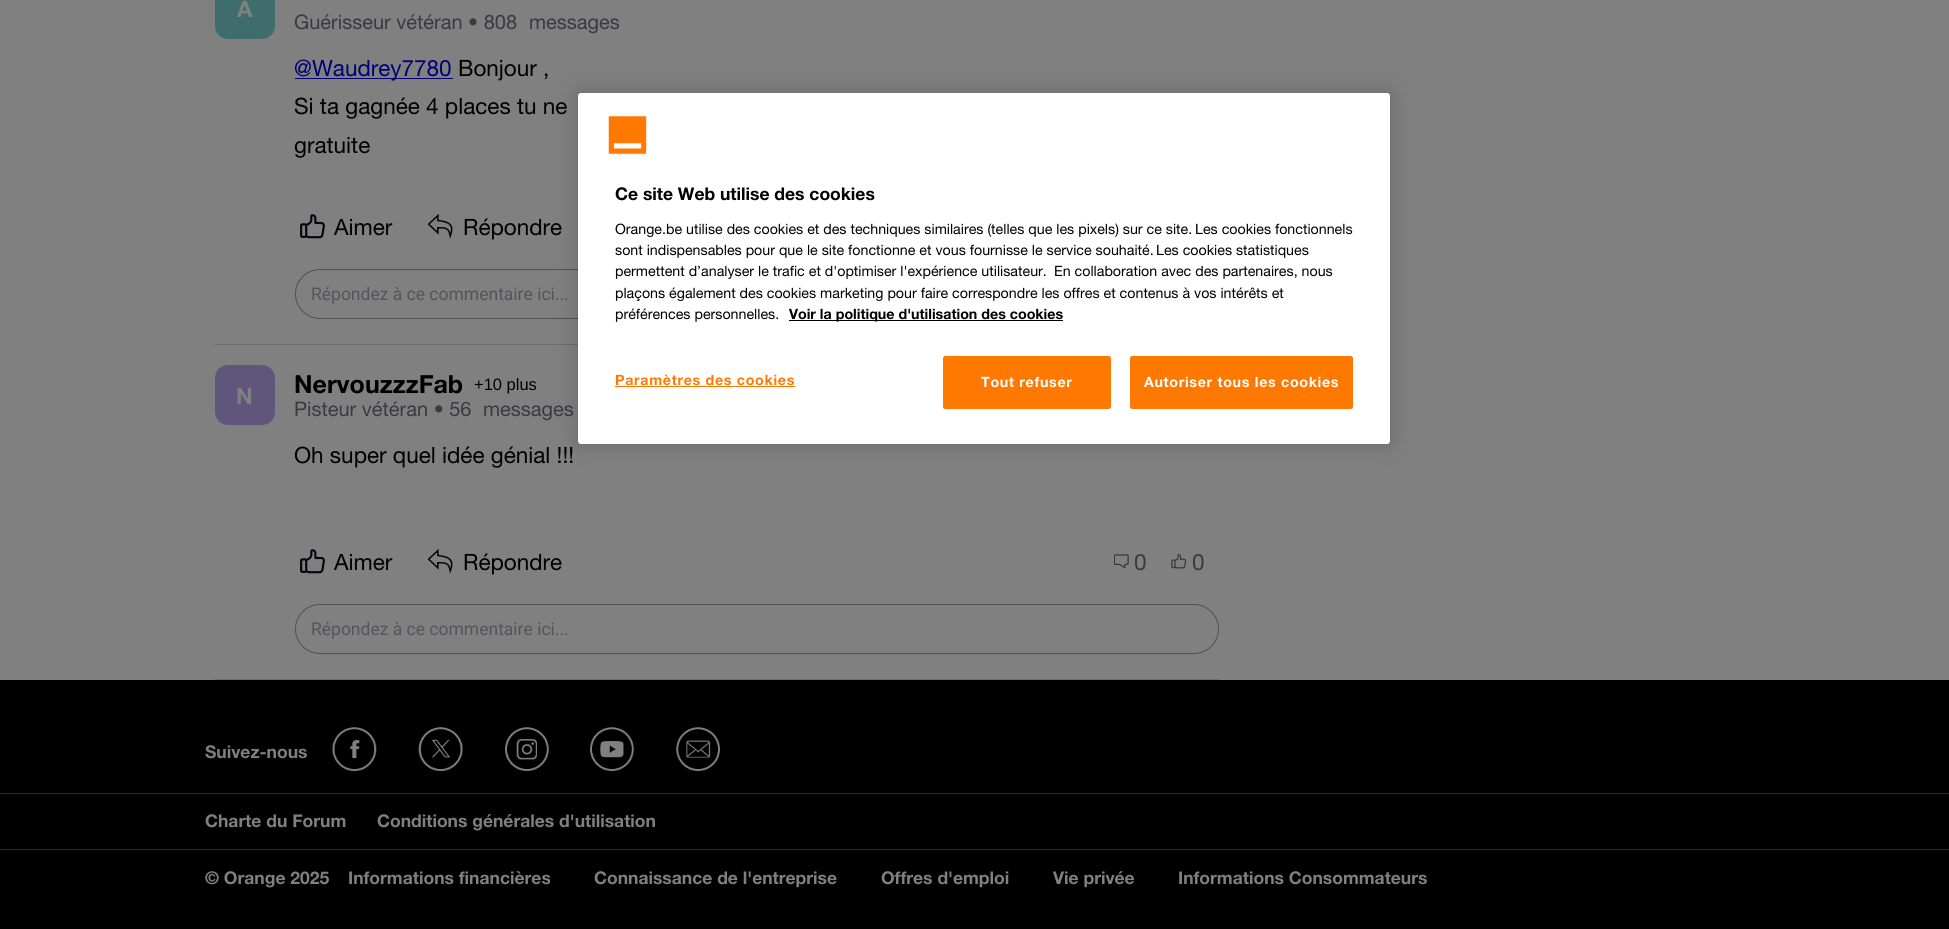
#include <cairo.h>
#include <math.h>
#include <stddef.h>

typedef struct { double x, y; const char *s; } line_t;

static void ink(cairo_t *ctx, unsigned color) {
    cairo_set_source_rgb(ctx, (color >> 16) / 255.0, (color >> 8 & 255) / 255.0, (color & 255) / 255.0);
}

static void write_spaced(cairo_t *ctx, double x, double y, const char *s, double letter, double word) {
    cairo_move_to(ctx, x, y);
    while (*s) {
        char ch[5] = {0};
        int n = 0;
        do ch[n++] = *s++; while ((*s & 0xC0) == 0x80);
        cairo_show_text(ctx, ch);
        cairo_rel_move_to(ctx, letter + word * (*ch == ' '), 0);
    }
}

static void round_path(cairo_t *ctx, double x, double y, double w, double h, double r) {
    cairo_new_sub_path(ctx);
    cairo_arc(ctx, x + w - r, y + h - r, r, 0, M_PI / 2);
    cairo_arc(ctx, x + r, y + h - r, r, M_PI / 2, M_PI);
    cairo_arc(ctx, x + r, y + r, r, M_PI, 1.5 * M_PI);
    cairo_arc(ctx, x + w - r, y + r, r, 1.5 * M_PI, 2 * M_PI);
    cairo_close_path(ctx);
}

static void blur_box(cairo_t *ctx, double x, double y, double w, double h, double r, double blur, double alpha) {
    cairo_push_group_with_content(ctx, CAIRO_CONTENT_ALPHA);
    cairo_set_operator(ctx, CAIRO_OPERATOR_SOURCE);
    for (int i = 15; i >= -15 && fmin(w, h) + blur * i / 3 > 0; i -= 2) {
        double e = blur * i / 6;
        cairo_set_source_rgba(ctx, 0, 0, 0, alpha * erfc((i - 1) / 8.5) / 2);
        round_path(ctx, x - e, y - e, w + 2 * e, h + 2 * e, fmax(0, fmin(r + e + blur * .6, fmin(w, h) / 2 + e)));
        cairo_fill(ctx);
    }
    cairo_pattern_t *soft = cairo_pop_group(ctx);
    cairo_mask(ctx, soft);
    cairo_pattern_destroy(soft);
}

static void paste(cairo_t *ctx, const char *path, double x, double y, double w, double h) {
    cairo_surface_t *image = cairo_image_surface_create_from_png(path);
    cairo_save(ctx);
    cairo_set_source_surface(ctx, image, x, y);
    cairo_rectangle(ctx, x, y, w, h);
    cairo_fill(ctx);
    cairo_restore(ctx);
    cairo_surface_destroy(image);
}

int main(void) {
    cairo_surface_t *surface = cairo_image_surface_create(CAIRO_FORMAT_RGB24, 1949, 929);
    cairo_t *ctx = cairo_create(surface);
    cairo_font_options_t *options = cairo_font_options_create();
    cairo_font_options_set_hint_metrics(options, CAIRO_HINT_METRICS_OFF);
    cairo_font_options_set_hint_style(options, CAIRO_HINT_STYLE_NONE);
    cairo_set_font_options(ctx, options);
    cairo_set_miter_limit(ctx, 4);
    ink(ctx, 0x808080);
    cairo_paint(ctx);
    ink(ctx, 0x6C6C70);
    cairo_rectangle(ctx, 215, 344, 363, 1);
    cairo_fill(ctx);
    ink(ctx, 0x3F6D6B);
    round_path(ctx, 215, -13, 60, 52, 13);
    cairo_fill(ctx);
    cairo_select_font_face(ctx, "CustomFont", CAIRO_FONT_SLANT_NORMAL, CAIRO_FONT_WEIGHT_BOLD);
    cairo_set_font_size(ctx, 22.5);
    ink(ctx, 0x808080);
    cairo_move_to(ctx, 237, 17);
    cairo_show_text(ctx, "A");
    cairo_select_font_face(ctx, "CustomFont", CAIRO_FONT_SLANT_NORMAL, CAIRO_FONT_WEIGHT_NORMAL);
    cairo_set_font_size(ctx, 20);
    ink(ctx, 0x3A3A3F);
    cairo_move_to(ctx, 294, 29);
    cairo_show_text(ctx, "Guérisseur vétéran • 808");
    cairo_move_to(ctx, 529, 29);
    cairo_show_text(ctx, "messages");
    ink(ctx, 0x000077);
    cairo_rectangle(ctx, 295, 78, 158, 1);
    cairo_fill(ctx);
    cairo_set_font_size(ctx, 22.5);
    cairo_move_to(ctx, 294, 76);
    cairo_show_text(ctx, "@Waudrey7780");
    ink(ctx, 0x000000);
    {
        static const line_t items[] = {
            {458, 76, "Bonjour ,"},
            {294, 114, "Si ta gagnée 4 places tu ne"},
            {294, 153, "gratuite"},
        };
        for (size_t i = 0; i < sizeof items / sizeof *items; i++) {
            cairo_move_to(ctx, items[i].x, items[i].y);
            cairo_show_text(ctx, items[i].s);
        }
    }
    paste(ctx, "media/1.png", 300, 214, 25, 25);
    cairo_move_to(ctx, 334, 235);
    cairo_show_text(ctx, "Aimer");
    paste(ctx, "media/2.png", 428, 214, 25, 25);
    cairo_move_to(ctx, 463, 235);
    cairo_show_text(ctx, "Répondre");
    round_path(ctx, 295.5, 269.5, 923, 49, 24.5);
    ink(ctx, 0x505054);
    cairo_set_line_width(ctx, 1);
    cairo_stroke(ctx);
    cairo_select_font_face(ctx, "Roboto", CAIRO_FONT_SLANT_NORMAL, CAIRO_FONT_WEIGHT_NORMAL);
    cairo_set_font_size(ctx, 17.5);
    ink(ctx, 0x555559);
    cairo_move_to(ctx, 311, 300);
    cairo_show_text(ctx, "Répondez à ce commentaire ici...");
    ink(ctx, 0x6C6C70);
    cairo_rectangle(ctx, 215, 679, 1004, 1);
    cairo_fill(ctx);
    ink(ctx, 0x60567C);
    round_path(ctx, 215, 365, 60, 60, 13);
    cairo_fill(ctx);
    cairo_select_font_face(ctx, "CustomFont", CAIRO_FONT_SLANT_NORMAL, CAIRO_FONT_WEIGHT_BOLD);
    cairo_set_font_size(ctx, 22.5);
    ink(ctx, 0x808080);
    cairo_move_to(ctx, 236, 404);
    cairo_show_text(ctx, "N");
    cairo_set_font_size(ctx, 25);
    ink(ctx, 0x000000);
    cairo_move_to(ctx, 294, 393);
    cairo_show_text(ctx, "NervouzzzFab");
    cairo_select_font_face(ctx, "Liberation Sans", CAIRO_FONT_SLANT_NORMAL, CAIRO_FONT_WEIGHT_NORMAL);
    cairo_set_font_size(ctx, 16.5);
    cairo_move_to(ctx, 474, 390);
    cairo_show_text(ctx, "+10 plus");
    cairo_select_font_face(ctx, "CustomFont", CAIRO_FONT_SLANT_NORMAL, CAIRO_FONT_WEIGHT_NORMAL);
    cairo_set_font_size(ctx, 20);
    ink(ctx, 0x3A3A3F);
    cairo_move_to(ctx, 294, 416);
    cairo_show_text(ctx, "Pisteur vétéran • 56");
    cairo_move_to(ctx, 483, 416);
    cairo_show_text(ctx, "messages");
    cairo_set_font_size(ctx, 22.5);
    ink(ctx, 0x000000);
    cairo_move_to(ctx, 294, 463);
    cairo_show_text(ctx, "Oh super quel idée génial !!!");
    paste(ctx, "media/1.png", 300, 549, 25, 25);
    cairo_move_to(ctx, 334, 570);
    cairo_show_text(ctx, "Aimer");
    paste(ctx, "media/2.png", 428, 549, 25, 25);
    cairo_move_to(ctx, 463, 570);
    cairo_show_text(ctx, "Répondre");
    paste(ctx, "media/3.png", 1114, 554, 15, 15);
    ink(ctx, 0x3A3A3F);
    cairo_move_to(ctx, 1134, 570);
    cairo_show_text(ctx, "0");
    paste(ctx, "media/4.png", 1171, 554, 15, 15);
    cairo_move_to(ctx, 1192, 570);
    cairo_show_text(ctx, "0");
    round_path(ctx, 295.5, 604.5, 923, 49, 24.5);
    ink(ctx, 0x505054);
    cairo_stroke(ctx);
    cairo_select_font_face(ctx, "Roboto", CAIRO_FONT_SLANT_NORMAL, CAIRO_FONT_WEIGHT_NORMAL);
    cairo_set_font_size(ctx, 17.5);
    ink(ctx, 0x555559);
    cairo_move_to(ctx, 311, 635);
    cairo_show_text(ctx, "Répondez à ce commentaire ici...");
    ink(ctx, 0x000000);
    cairo_rectangle(ctx, 0, 680, 1949, 249);
    cairo_fill(ctx);
    cairo_select_font_face(ctx, "CustomFont", CAIRO_FONT_SLANT_NORMAL, CAIRO_FONT_WEIGHT_BOLD);
    ink(ctx, 0x808080);
    cairo_move_to(ctx, 205, 758);
    cairo_show_text(ctx, "Suivez-nous");
    paste(ctx, "media/5.png", 332, 727, 45, 44);
    paste(ctx, "media/6.png", 418, 727, 45, 44);
    paste(ctx, "media/7.png", 505, 727, 44, 44);
    paste(ctx, "media/8.png", 590, 727, 44, 44);
    paste(ctx, "media/9.png", 676, 727, 44, 44);
    ink(ctx, 0x2A2A2A);
    cairo_rectangle(ctx, 0, 793, 1949, 1);
    cairo_fill(ctx);
    ink(ctx, 0x808080);
    cairo_move_to(ctx, 205, 827);
    cairo_show_text(ctx, "Charte du Forum");
    cairo_move_to(ctx, 377, 827);
    cairo_show_text(ctx, "Conditions générales d'utilisation");
    ink(ctx, 0x2A2A2A);
    cairo_rectangle(ctx, 0, 849, 1949, 1);
    cairo_fill(ctx);
    ink(ctx, 0x808080);
    {
        static const line_t items[] = {
            {205, 884, "© Orange 2025"},
            {348, 884, "Informations financières"},
            {594, 884, "Connaissance de l'entreprise"},
            {881, 884, "Offres d'emploi"},
            {1053, 884, "Vie privée"},
            {1178, 884, "Informations Consommateurs"},
        };
        for (size_t i = 0; i < sizeof items / sizeof *items; i++) {
            cairo_move_to(ctx, items[i].x, items[i].y);
            cairo_show_text(ctx, items[i].s);
        }
    }
    ink(ctx, 0x000000);
    blur_box(ctx, 578, 93, 812, 351, 3, 11, 0.2);
    ink(ctx, 0xFFFFFF);
    round_path(ctx, 578, 93, 812, 351, 3);
    cairo_fill(ctx);
    paste(ctx, "media/10.png", 608, 116, 39, 39);
    ink(ctx, 0x000000);
    cairo_move_to(ctx, 615, 200);
    cairo_show_text(ctx, "Ce site Web utilise des cookies");
    cairo_select_font_face(ctx, "CustomFont", CAIRO_FONT_SLANT_NORMAL, CAIRO_FONT_WEIGHT_NORMAL);
    cairo_set_font_size(ctx, 14.25);
    {
        static const line_t items[] = {
            {615, 234, "Orange.be utilise des cookies et des techniques similaires (telles que les pixels) sur ce site."},
            {1195, 234, "Les cookies fonctionnels"},
            {615, 255, "sont indispensables pour que le site fonctionne et vous fournisse le service souhaité."},
            {1156, 255, "Les cookies statistiques"},
            {615, 276, "permettent d’analyser le trafic et d'optimiser l'expérience utilisateur."},
            {1054, 276, "En collaboration avec des partenaires, nous"},
            {615, 298, "plaçons également des cookies marketing pour faire correspondre les offres et contenus à vos intérêts et"},
            {615, 319, "préférences personnelles."},
        };
        for (size_t i = 0; i < sizeof items / sizeof *items; i++) {
            cairo_move_to(ctx, items[i].x, items[i].y);
            cairo_show_text(ctx, items[i].s);
        }
    }
    cairo_rectangle(ctx, 789, 320, 274, 1);
    cairo_fill(ctx);
    cairo_select_font_face(ctx, "CustomFont", CAIRO_FONT_SLANT_NORMAL, CAIRO_FONT_WEIGHT_BOLD);
    cairo_move_to(ctx, 789, 319);
    cairo_show_text(ctx, "Voir la politique d'utilisation des cookies");
    ink(ctx, 0xFF7900);
    write_spaced(ctx, 615, 385, "Paramètres des cookies", 0.7, 0);
    cairo_rectangle(ctx, 615, 386, 180, 1);
    cairo_fill(ctx);
    round_path(ctx, 943.5, 356.5, 167, 52, 2);
    cairo_fill_preserve(ctx);
    cairo_stroke(ctx);
    ink(ctx, 0xFFFFFF);
    write_spaced(ctx, 981, 387, "Tout refuser", 0.7, 0);
    ink(ctx, 0xFF7900);
    round_path(ctx, 1130.5, 356.5, 222, 52, 2);
    cairo_fill_preserve(ctx);
    cairo_stroke(ctx);
    ink(ctx, 0xFFFFFF);
    write_spaced(ctx, 1144, 387, "Autoriser tous les cookies", 0.7, 0);
    cairo_surface_write_to_png(surface, "image.png");
    cairo_font_options_destroy(options);
    cairo_destroy(ctx);
    cairo_surface_destroy(surface);
    return 0;
}
